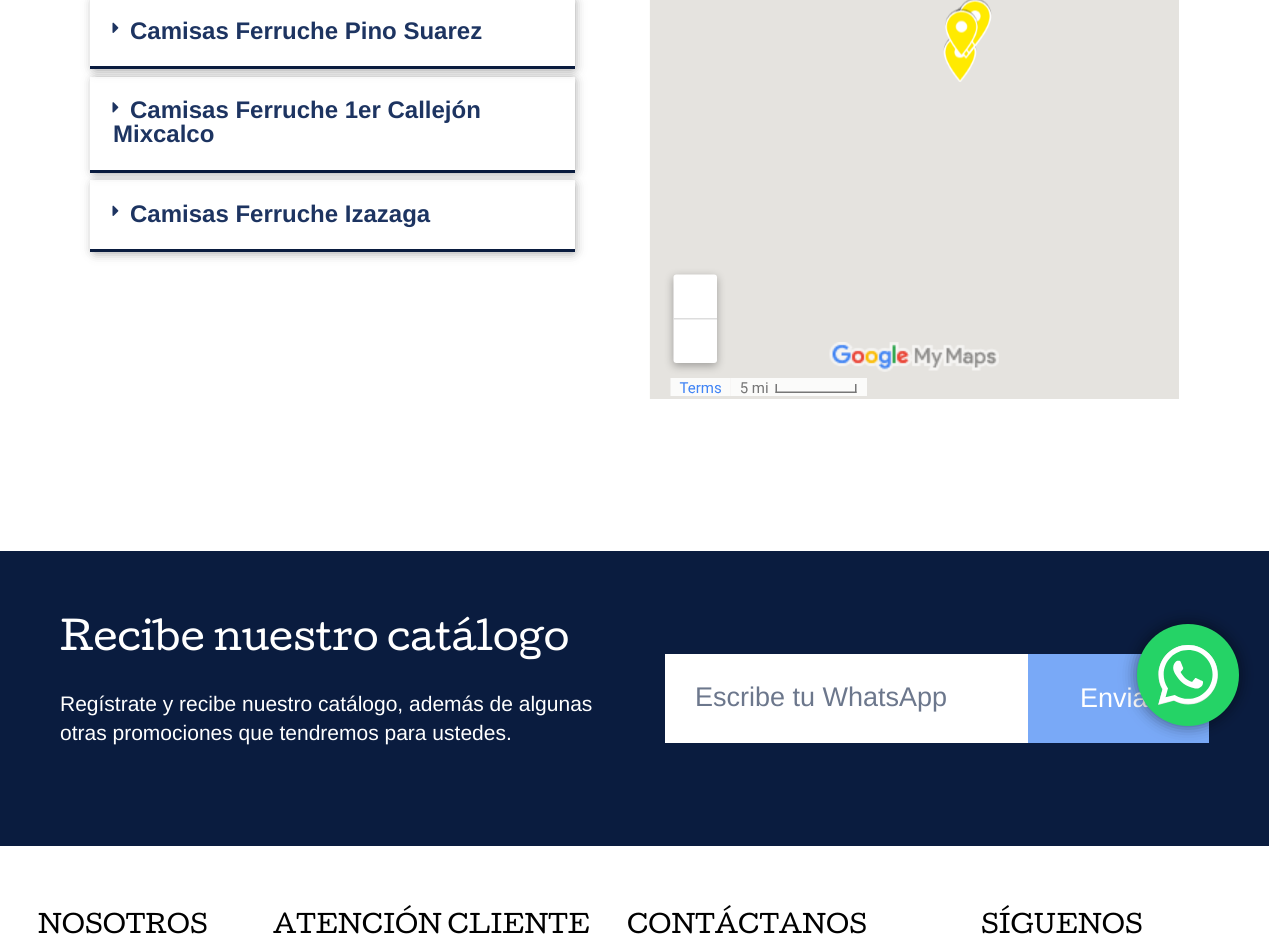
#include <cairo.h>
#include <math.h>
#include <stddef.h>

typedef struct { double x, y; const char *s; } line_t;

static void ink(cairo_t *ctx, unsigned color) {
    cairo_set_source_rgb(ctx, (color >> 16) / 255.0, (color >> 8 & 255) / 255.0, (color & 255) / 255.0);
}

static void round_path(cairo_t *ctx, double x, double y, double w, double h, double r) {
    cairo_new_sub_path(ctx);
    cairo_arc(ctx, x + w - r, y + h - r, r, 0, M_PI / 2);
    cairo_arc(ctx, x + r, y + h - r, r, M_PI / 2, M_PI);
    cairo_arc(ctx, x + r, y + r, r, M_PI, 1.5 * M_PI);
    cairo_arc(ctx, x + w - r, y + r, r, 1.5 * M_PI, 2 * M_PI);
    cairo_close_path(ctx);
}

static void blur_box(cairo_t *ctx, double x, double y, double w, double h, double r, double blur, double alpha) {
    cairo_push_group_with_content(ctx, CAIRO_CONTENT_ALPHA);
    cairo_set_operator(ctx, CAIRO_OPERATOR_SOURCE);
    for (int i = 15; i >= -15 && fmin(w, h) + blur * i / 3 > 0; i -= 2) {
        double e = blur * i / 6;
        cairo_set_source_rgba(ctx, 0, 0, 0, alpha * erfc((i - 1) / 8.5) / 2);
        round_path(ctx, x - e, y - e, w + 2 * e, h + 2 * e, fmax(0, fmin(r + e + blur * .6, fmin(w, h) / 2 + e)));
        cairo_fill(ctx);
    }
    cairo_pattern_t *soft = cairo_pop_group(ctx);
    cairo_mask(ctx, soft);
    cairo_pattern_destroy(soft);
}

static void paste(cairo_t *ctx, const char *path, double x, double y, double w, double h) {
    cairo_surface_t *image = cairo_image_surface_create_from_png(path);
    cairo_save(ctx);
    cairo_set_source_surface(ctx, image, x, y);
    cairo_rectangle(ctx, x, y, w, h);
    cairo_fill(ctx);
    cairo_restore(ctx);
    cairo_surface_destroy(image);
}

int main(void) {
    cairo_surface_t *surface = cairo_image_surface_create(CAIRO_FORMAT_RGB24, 1269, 951);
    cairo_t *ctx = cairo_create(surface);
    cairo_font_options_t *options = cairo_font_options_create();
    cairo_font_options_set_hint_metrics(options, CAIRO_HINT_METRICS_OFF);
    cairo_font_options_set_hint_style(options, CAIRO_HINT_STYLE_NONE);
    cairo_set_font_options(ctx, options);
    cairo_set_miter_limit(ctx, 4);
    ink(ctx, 0xFFFFFF);
    cairo_paint(ctx);
    cairo_save(ctx);
    cairo_set_fill_rule(ctx, CAIRO_FILL_RULE_EVEN_ODD);
    cairo_new_path(ctx);
    cairo_move_to(ctx, 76, 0);
    cairo_line_to(ctx, 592, 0);
    cairo_line_to(ctx, 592, 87);
    cairo_line_to(ctx, 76, 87);
    cairo_close_path(ctx);
    cairo_move_to(ctx, 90, -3);
    cairo_line_to(ctx, 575, -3);
    cairo_line_to(ctx, 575, 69);
    cairo_line_to(ctx, 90, 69);
    cairo_close_path(ctx);
    cairo_clip(ctx);
    ink(ctx, 0x000000);
    blur_box(ctx, 95, 2, 478, 66, 0, 6, 0.5);
    cairo_restore(ctx);
    ink(ctx, 0x0A1C3F);
    cairo_rectangle(ctx, 90, 66, 485, 3);
    cairo_fill(ctx);
    paste(ctx, "media/1.png", 112, 22, 7, 11);
    cairo_select_font_face(ctx, "Liberation Sans", CAIRO_FONT_SLANT_NORMAL, CAIRO_FONT_WEIGHT_BOLD);
    cairo_set_font_size(ctx, 24);
    ink(ctx, 0x1D3461);
    cairo_move_to(ctx, 130, 39);
    cairo_show_text(ctx, "Camisas Ferruche Pino Suarez");
    cairo_save(ctx);
    cairo_set_fill_rule(ctx, CAIRO_FILL_RULE_EVEN_ODD);
    cairo_new_path(ctx);
    cairo_move_to(ctx, 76, 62);
    cairo_line_to(ctx, 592, 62);
    cairo_line_to(ctx, 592, 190);
    cairo_line_to(ctx, 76, 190);
    cairo_close_path(ctx);
    cairo_move_to(ctx, 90, 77);
    cairo_line_to(ctx, 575, 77);
    cairo_line_to(ctx, 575, 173);
    cairo_line_to(ctx, 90, 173);
    cairo_close_path(ctx);
    cairo_clip(ctx);
    ink(ctx, 0x000000);
    blur_box(ctx, 95, 81, 478, 90, 0, 6, 0.5);
    cairo_restore(ctx);
    ink(ctx, 0x0A1C3F);
    cairo_rectangle(ctx, 90, 170, 485, 3);
    cairo_fill(ctx);
    paste(ctx, "media/2.png", 112, 102, 7, 11);
    ink(ctx, 0x1D3461);
    cairo_move_to(ctx, 130, 118);
    cairo_show_text(ctx, "Camisas Ferruche 1er Callejón");
    cairo_move_to(ctx, 113, 142);
    cairo_show_text(ctx, "Mixcalco");
    cairo_save(ctx);
    cairo_set_fill_rule(ctx, CAIRO_FILL_RULE_EVEN_ODD);
    cairo_new_path(ctx);
    cairo_move_to(ctx, 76, 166);
    cairo_line_to(ctx, 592, 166);
    cairo_line_to(ctx, 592, 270);
    cairo_line_to(ctx, 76, 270);
    cairo_close_path(ctx);
    cairo_move_to(ctx, 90, 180);
    cairo_line_to(ctx, 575, 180);
    cairo_line_to(ctx, 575, 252);
    cairo_line_to(ctx, 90, 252);
    cairo_close_path(ctx);
    cairo_clip(ctx);
    ink(ctx, 0x000000);
    blur_box(ctx, 95, 185, 478, 66, 0, 6, 0.5);
    cairo_restore(ctx);
    ink(ctx, 0x0A1C3F);
    cairo_rectangle(ctx, 90, 249, 485, 3);
    cairo_fill(ctx);
    paste(ctx, "media/1.png", 112, 205, 7, 11);
    ink(ctx, 0x1D3461);
    cairo_move_to(ctx, 130, 222);
    cairo_show_text(ctx, "Camisas Ferruche Izazaga");
    paste(ctx, "media/3.png", 649, 0, 530, 399);
    ink(ctx, 0x0A1C3F);
    cairo_rectangle(ctx, 0, 551, 1269, 295);
    cairo_fill(ctx);
    cairo_select_font_face(ctx, "Cutive", CAIRO_FONT_SLANT_NORMAL, CAIRO_FONT_WEIGHT_NORMAL);
    cairo_set_font_size(ctx, 37.5);
    ink(ctx, 0xFFFFFF);
    cairo_move_to(ctx, 60, 650);
    cairo_show_text(ctx, "Recibe nuestro catálogo");
    cairo_select_font_face(ctx, "Liberation Sans", CAIRO_FONT_SLANT_NORMAL, CAIRO_FONT_WEIGHT_NORMAL);
    cairo_set_font_size(ctx, 21);
    cairo_move_to(ctx, 60, 711);
    cairo_show_text(ctx, "Regístrate y recibe nuestro catálogo, además de algunas");
    cairo_move_to(ctx, 60, 740);
    cairo_show_text(ctx, "otras promociones que tendremos para ustedes.");
    cairo_rectangle(ctx, 665, 654, 363, 89);
    cairo_fill(ctx);
    cairo_set_font_size(ctx, 27);
    ink(ctx, 0x6C778C);
    cairo_move_to(ctx, 695, 706);
    cairo_show_text(ctx, "Escribe tu WhatsApp");
    ink(ctx, 0x79A9F7);
    cairo_rectangle(ctx, 1028, 654, 181, 89);
    cairo_fill(ctx);
    ink(ctx, 0xFFFFFF);
    cairo_move_to(ctx, 1080, 707);
    cairo_show_text(ctx, "Envia");
    cairo_select_font_face(ctx, "Cutive", CAIRO_FONT_SLANT_NORMAL, CAIRO_FONT_WEIGHT_NORMAL);
    cairo_set_font_size(ctx, 24);
    ink(ctx, 0x000000);
    {
        static const line_t items[] = {
            {38, 933, "NOSOTROS"},
            {273, 933, "ATENCIÓN CLIENTE"},
            {627, 933, "CONTÁCTANOS"},
            {981, 933, "SÍGUENOS"},
        };
        for (size_t i = 0; i < sizeof items / sizeof *items; i++) {
            cairo_move_to(ctx, items[i].x, items[i].y);
            cairo_show_text(ctx, items[i].s);
        }
    }
    ink(ctx, 0x000000);
    blur_box(ctx, 1137, 624, 102, 102, 51, 8, 0.5);
    ink(ctx, 0x25D366);
    cairo_arc(ctx, 1188, 675, 51, 0, 2 * M_PI);
    cairo_fill(ctx);
    paste(ctx, "media/4.png", 1158, 645, 60, 60);
    cairo_surface_write_to_png(surface, "image.png");
    cairo_font_options_destroy(options);
    cairo_destroy(ctx);
    cairo_surface_destroy(surface);
    return 0;
}
